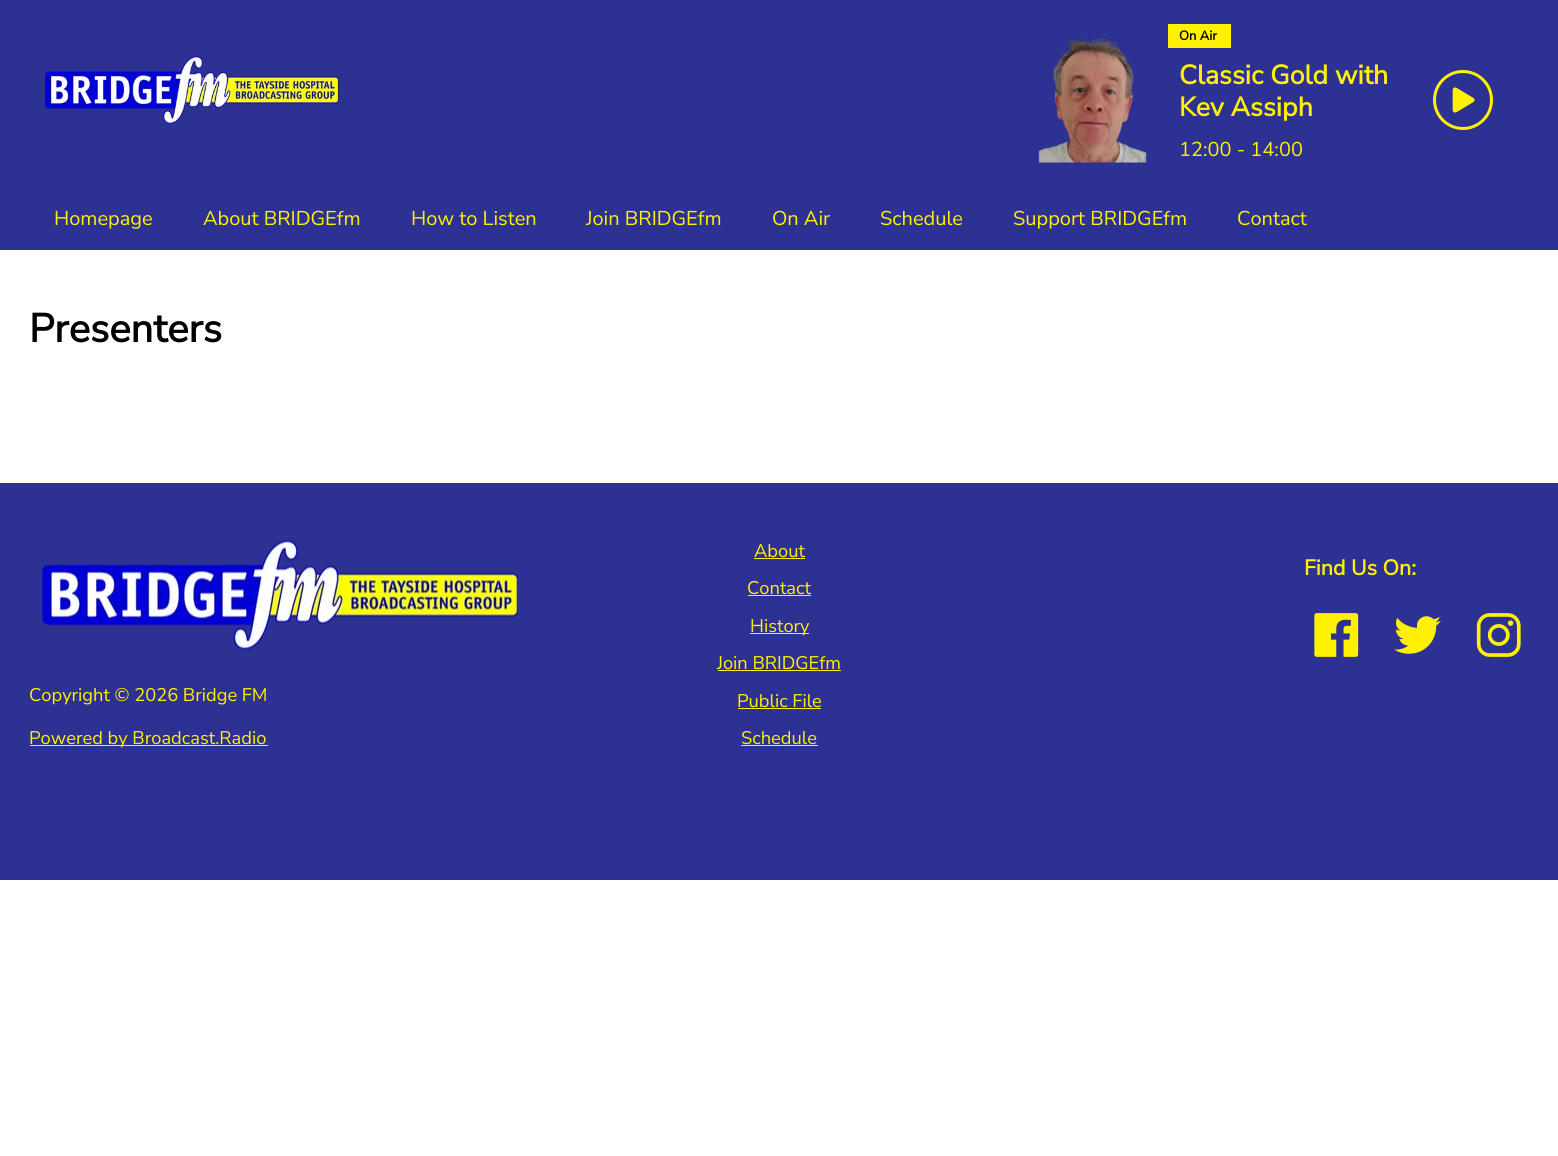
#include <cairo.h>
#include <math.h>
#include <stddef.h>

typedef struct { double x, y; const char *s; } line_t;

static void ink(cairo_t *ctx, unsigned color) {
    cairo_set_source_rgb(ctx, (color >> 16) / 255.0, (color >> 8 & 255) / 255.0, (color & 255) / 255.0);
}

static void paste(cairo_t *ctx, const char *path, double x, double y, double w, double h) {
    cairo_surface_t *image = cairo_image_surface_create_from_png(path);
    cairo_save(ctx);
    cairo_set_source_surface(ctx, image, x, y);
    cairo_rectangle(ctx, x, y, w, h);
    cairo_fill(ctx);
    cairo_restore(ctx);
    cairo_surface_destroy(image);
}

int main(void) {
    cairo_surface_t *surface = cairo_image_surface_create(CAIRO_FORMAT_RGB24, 1558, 1156);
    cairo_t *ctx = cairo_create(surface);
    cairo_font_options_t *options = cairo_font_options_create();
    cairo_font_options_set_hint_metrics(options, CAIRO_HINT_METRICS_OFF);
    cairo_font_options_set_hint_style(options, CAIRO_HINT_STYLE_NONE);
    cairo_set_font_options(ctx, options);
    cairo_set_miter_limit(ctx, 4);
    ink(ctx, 0xFFFFFF);
    cairo_paint(ctx);
    ink(ctx, 0x2D3192);
    cairo_rectangle(ctx, 0, 0, 1558, 250);
    cairo_fill(ctx);
    paste(ctx, "media/1.png", 45, 56, 294, 68);
    paste(ctx, "media/2.png", 1038, 37, 109, 126);
    ink(ctx, 0xFFF100);
    cairo_rectangle(ctx, 1168, 24, 63, 24);
    cairo_fill(ctx);
    cairo_select_font_face(ctx, "Nunito Sans", CAIRO_FONT_SLANT_NORMAL, CAIRO_FONT_WEIGHT_BOLD);
    cairo_set_font_size(ctx, 13);
    ink(ctx, 0x000000);
    cairo_move_to(ctx, 1179, 40);
    cairo_show_text(ctx, "On Air");
    cairo_set_font_size(ctx, 26.75);
    ink(ctx, 0xFFF100);
    cairo_move_to(ctx, 1179, 84);
    cairo_show_text(ctx, "Classic Gold with");
    cairo_move_to(ctx, 1179, 116);
    cairo_show_text(ctx, "Kev Assiph");
    cairo_select_font_face(ctx, "Nunito Sans ExtraLight", CAIRO_FONT_SLANT_NORMAL, CAIRO_FONT_WEIGHT_NORMAL);
    cairo_set_font_size(ctx, 20);
    cairo_move_to(ctx, 1179, 156);
    cairo_show_text(ctx, "12:00 - 14:00");
    cairo_new_path(ctx);
    cairo_arc(ctx, 1463, 100, 28.5, 0, 2 * M_PI);
    cairo_set_line_width(ctx, 3);
    cairo_stroke(ctx);
    paste(ctx, "media/3.png", 1452, 87, 23, 26);
    {
        static const line_t items[] = {
            {54, 225, "Homepage"},
            {203, 225, "About BRIDGEfm"},
            {411, 225, "How to Listen"},
            {586, 225, "Join BRIDGEfm"},
            {772, 225, "On Air"},
            {880, 225, "Schedule"},
            {1013, 225, "Support BRIDGEfm"},
            {1237, 225, "Contact"},
        };
        for (size_t i = 0; i < sizeof items / sizeof *items; i++) {
            cairo_move_to(ctx, items[i].x, items[i].y);
            cairo_show_text(ctx, items[i].s);
        }
    }
    cairo_select_font_face(ctx, "Nunito Sans", CAIRO_FONT_SLANT_NORMAL, CAIRO_FONT_WEIGHT_BOLD);
    cairo_set_font_size(ctx, 40);
    ink(ctx, 0x000000);
    cairo_move_to(ctx, 29, 342);
    cairo_show_text(ctx, "Presenters");
    ink(ctx, 0x2D3192);
    cairo_rectangle(ctx, 0, 483, 1558, 397);
    cairo_fill(ctx);
    cairo_select_font_face(ctx, "Nunito Sans ExtraLight", CAIRO_FONT_SLANT_NORMAL, CAIRO_FONT_WEIGHT_NORMAL);
    cairo_set_font_size(ctx, 18.3);
    ink(ctx, 0xFFF100);
    cairo_move_to(ctx, 754, 557);
    cairo_show_text(ctx, "About");
    cairo_rectangle(ctx, 754, 558, 51, 1);
    cairo_fill(ctx);
    cairo_move_to(ctx, 747, 594);
    cairo_show_text(ctx, "Contact");
    cairo_rectangle(ctx, 748, 595, 63, 1);
    cairo_fill(ctx);
    cairo_rectangle(ctx, 750, 633, 59, 1);
    cairo_fill(ctx);
    cairo_move_to(ctx, 750, 632);
    cairo_show_text(ctx, "History");
    cairo_move_to(ctx, 717, 669);
    cairo_show_text(ctx, "Join BRIDGEfm");
    cairo_rectangle(ctx, 718, 670, 123, 1);
    cairo_fill(ctx);
    cairo_move_to(ctx, 737, 707);
    cairo_show_text(ctx, "Public File");
    cairo_rectangle(ctx, 738, 708, 83, 1);
    cairo_fill(ctx);
    cairo_move_to(ctx, 741, 744);
    cairo_show_text(ctx, "Schedule");
    cairo_rectangle(ctx, 741, 745, 77, 1);
    cairo_fill(ctx);
    cairo_select_font_face(ctx, "Nunito Sans", CAIRO_FONT_SLANT_NORMAL, CAIRO_FONT_WEIGHT_BOLD);
    cairo_set_font_size(ctx, 21.5);
    cairo_move_to(ctx, 1304, 575);
    cairo_show_text(ctx, "Find Us On:");
    paste(ctx, "media/4.png", 1314, 613, 45, 44);
    paste(ctx, "media/5.png", 1394, 616, 47, 38);
    paste(ctx, "media/6.png", 1476, 613, 45, 44);
    paste(ctx, "media/7.png", 42, 540, 476, 110);
    cairo_select_font_face(ctx, "Nunito Sans ExtraLight", CAIRO_FONT_SLANT_NORMAL, CAIRO_FONT_WEIGHT_NORMAL);
    cairo_set_font_size(ctx, 18.3);
    cairo_move_to(ctx, 29, 701);
    cairo_show_text(ctx, "Copyright © 2026 Bridge FM");
    cairo_rectangle(ctx, 30, 745, 238, 1);
    cairo_fill(ctx);
    cairo_move_to(ctx, 29, 744);
    cairo_show_text(ctx, "Powered by Broadcast.Radio");
    cairo_surface_write_to_png(surface, "image.png");
    cairo_font_options_destroy(options);
    cairo_destroy(ctx);
    cairo_surface_destroy(surface);
    return 0;
}
